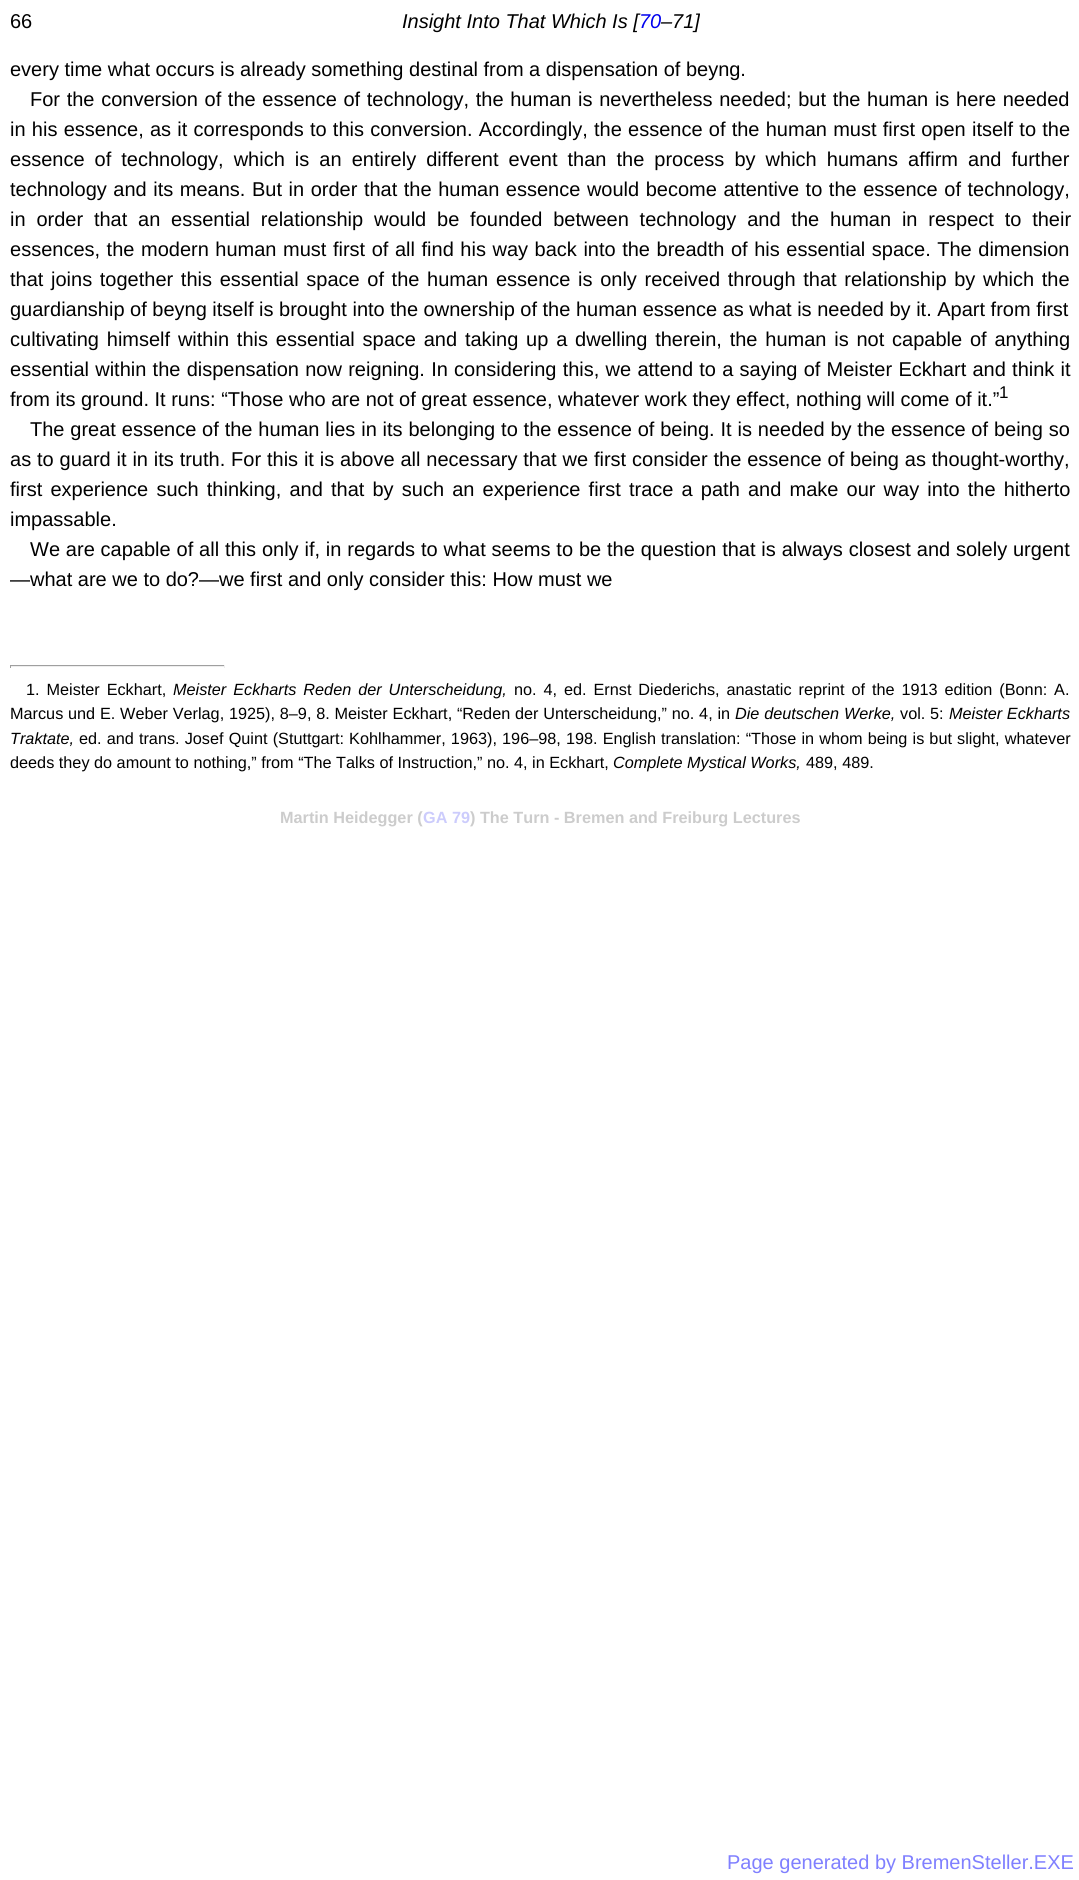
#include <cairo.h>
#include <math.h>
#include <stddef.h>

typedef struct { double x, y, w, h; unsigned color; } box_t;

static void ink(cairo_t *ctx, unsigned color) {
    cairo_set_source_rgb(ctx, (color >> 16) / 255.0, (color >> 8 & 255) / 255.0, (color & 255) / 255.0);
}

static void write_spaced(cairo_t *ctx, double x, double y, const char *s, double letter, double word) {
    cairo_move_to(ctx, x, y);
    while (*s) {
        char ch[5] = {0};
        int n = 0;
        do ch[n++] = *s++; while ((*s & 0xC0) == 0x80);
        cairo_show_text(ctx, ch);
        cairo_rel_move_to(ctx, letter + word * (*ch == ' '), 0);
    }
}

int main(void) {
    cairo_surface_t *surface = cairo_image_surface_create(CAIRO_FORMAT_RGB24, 1079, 1880);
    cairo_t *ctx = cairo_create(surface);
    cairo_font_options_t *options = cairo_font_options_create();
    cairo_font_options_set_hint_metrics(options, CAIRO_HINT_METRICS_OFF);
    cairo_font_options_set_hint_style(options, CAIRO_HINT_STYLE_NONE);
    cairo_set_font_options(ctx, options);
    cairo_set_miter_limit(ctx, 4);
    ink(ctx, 0xFFFFFF);
    cairo_paint(ctx);
    cairo_select_font_face(ctx, "Liberation Sans", CAIRO_FONT_SLANT_NORMAL, CAIRO_FONT_WEIGHT_NORMAL);
    cairo_set_font_size(ctx, 20);
    ink(ctx, 0x000000);
    cairo_move_to(ctx, 10, 28);
    cairo_show_text(ctx, "66");
    cairo_select_font_face(ctx, "Liberation Sans", CAIRO_FONT_SLANT_ITALIC, CAIRO_FONT_WEIGHT_NORMAL);
    cairo_move_to(ctx, 402, 28);
    cairo_show_text(ctx, "Insight Into That Which Is [");
    ink(ctx, 0x0000EE);
    cairo_move_to(ctx, 639, 28);
    cairo_show_text(ctx, "70");
    ink(ctx, 0x000000);
    cairo_move_to(ctx, 661, 28);
    cairo_show_text(ctx, "–71]");
    cairo_select_font_face(ctx, "Liberation Sans", CAIRO_FONT_SLANT_NORMAL, CAIRO_FONT_WEIGHT_NORMAL);
    cairo_move_to(ctx, 10, 76);
    cairo_show_text(ctx, "every time what occurs is already something destinal from a dispensation of beyng.");
    write_spaced(ctx, 30, 106, "For the conversion of the essence of technology, the human is nevertheless needed; but the human is here needed", 0, 1.1);
    write_spaced(ctx, 10, 136, "in his essence, as it corresponds to this conversion. Accordingly, the essence of the human must first open itself to the", 0, 0.7);
    write_spaced(ctx, 10, 166, "essence of technology, which is an entirely different event than the process by which humans affirm and further", 0, 4.5);
    write_spaced(ctx, 10, 196, "technology and its means. But in order that the human essence would become attentive to the essence of technology,", 0, 1);
    write_spaced(ctx, 10, 226, "in order that an essential relationship would be founded between technology and the human in respect to their", 0, 5.25);
    write_spaced(ctx, 10, 256, "essences, the modern human must first of all find his way back into the breadth of his essential space. The dimension", 0, 1);
    write_spaced(ctx, 10, 286, "that joins together this essential space of the human essence is only received through that relationship by which the", 0, 2.1);
    cairo_move_to(ctx, 10, 316);
    cairo_show_text(ctx, "guardianship of beyng itself is brought into the ownership of the human essence as what is needed by it. Apart from first");
    write_spaced(ctx, 10, 346, "cultivating himself within this essential space and taking up a dwelling therein, the human is not capable of anything", 0, 2.25);
    write_spaced(ctx, 10, 376, "essential within the dispensation now reigning. In considering this, we attend to a saying of Meister Eckhart and think it", 0, 0.7);
    cairo_move_to(ctx, 10, 406);
    cairo_show_text(ctx, "from its ground. It runs: “Those who are not of great essence, whatever work they effect, nothing will come of it.”");
    cairo_set_font_size(ctx, 17);
    cairo_move_to(ctx, 999, 398);
    cairo_show_text(ctx, "1");
    cairo_set_font_size(ctx, 20);
    write_spaced(ctx, 30, 436, "The great essence of the human lies in its belonging to the essence of being. It is needed by the essence of being so", 0, 0.3);
    write_spaced(ctx, 10, 466, "as to guard it in its truth. For this it is above all necessary that we first consider the essence of being as thought-worthy,", 0, 0.3);
    write_spaced(ctx, 10, 496, "first experience such thinking, and that by such an experience first trace a path and make our way into the hitherto", 0, 2.6);
    cairo_move_to(ctx, 10, 526);
    cairo_show_text(ctx, "impassable.");
    write_spaced(ctx, 30, 556, "We are capable of all this only if, in regards to what seems to be the question that is always closest and solely urgent", 0, 0.3);
    cairo_move_to(ctx, 10, 586);
    cairo_show_text(ctx, "—what are we to do?—we first and only consider this: How must we");
    {
        static const box_t items[] = {
            {10, 665, 215, 1, 0x9F9F9F},
            {224, 665, 1, 3, 0xEEEEEE},
            {10, 666, 215, 1, 0xEEEEEE},
            {10, 665, 1, 3, 0x9F9F9F},
        };
        for (size_t i = 0; i < sizeof items / sizeof *items; i++) {
            ink(ctx, items[i].color);
            cairo_rectangle(ctx, items[i].x, items[i].y, items[i].w, items[i].h);
            cairo_fill(ctx);
        }
    }
    cairo_set_font_size(ctx, 16.25);
    ink(ctx, 0x000000);
    write_spaced(ctx, 26, 695, "1. Meister Eckhart,", 0, 2.4);
    cairo_select_font_face(ctx, "Liberation Sans", CAIRO_FONT_SLANT_ITALIC, CAIRO_FONT_WEIGHT_NORMAL);
    write_spaced(ctx, 173, 695, "Meister Eckharts Reden der Unterscheidung,", 0, 2.4);
    cairo_select_font_face(ctx, "Liberation Sans", CAIRO_FONT_SLANT_NORMAL, CAIRO_FONT_WEIGHT_NORMAL);
    write_spaced(ctx, 514, 695, "no. 4, ed. Ernst Diederichs, anastatic reprint of the 1913 edition (Bonn: A.", 0, 2.4);
    write_spaced(ctx, 10, 719, "Marcus und E. Weber Verlag, 1925), 8–9, 8. Meister Eckhart, “Reden der Unterscheidung,” no. 4, in", 0, 0.25);
    cairo_select_font_face(ctx, "Liberation Sans", CAIRO_FONT_SLANT_ITALIC, CAIRO_FONT_WEIGHT_NORMAL);
    write_spaced(ctx, 735, 719, "Die deutschen Werke,", 0, 0.25);
    cairo_select_font_face(ctx, "Liberation Sans", CAIRO_FONT_SLANT_NORMAL, CAIRO_FONT_WEIGHT_NORMAL);
    write_spaced(ctx, 900, 719, "vol. 5:", 0, 0.25);
    cairo_select_font_face(ctx, "Liberation Sans", CAIRO_FONT_SLANT_ITALIC, CAIRO_FONT_WEIGHT_NORMAL);
    cairo_move_to(ctx, 949, 719);
    cairo_show_text(ctx, "Meister Eckharts");
    cairo_move_to(ctx, 10, 744);
    cairo_show_text(ctx, "Traktate,");
    cairo_select_font_face(ctx, "Liberation Sans", CAIRO_FONT_SLANT_NORMAL, CAIRO_FONT_WEIGHT_NORMAL);
    write_spaced(ctx, 79, 744, "ed. and trans. Josef Quint (Stuttgart: Kohlhammer, 1963), 196–98, 198. English translation: “Those in whom being is but slight, whatever", 0, 0.6);
    cairo_move_to(ctx, 10, 768);
    cairo_show_text(ctx, "deeds they do amount to nothing,” from “The Talks of Instruction,” no. 4, in Eckhart,");
    cairo_select_font_face(ctx, "Liberation Sans", CAIRO_FONT_SLANT_ITALIC, CAIRO_FONT_WEIGHT_NORMAL);
    cairo_move_to(ctx, 613, 768);
    cairo_show_text(ctx, "Complete Mystical Works,");
    cairo_select_font_face(ctx, "Liberation Sans", CAIRO_FONT_SLANT_NORMAL, CAIRO_FONT_WEIGHT_NORMAL);
    cairo_move_to(ctx, 806, 768);
    cairo_show_text(ctx, "489, 489.");
    cairo_select_font_face(ctx, "Liberation Sans", CAIRO_FONT_SLANT_NORMAL, CAIRO_FONT_WEIGHT_BOLD);
    ink(ctx, 0xCCCCCC);
    cairo_move_to(ctx, 280, 823);
    cairo_show_text(ctx, "Martin Heidegger (");
    ink(ctx, 0xCCCCFC);
    cairo_move_to(ctx, 423, 823);
    cairo_show_text(ctx, "GA 79");
    ink(ctx, 0xCCCCCC);
    cairo_move_to(ctx, 470, 823);
    cairo_show_text(ctx, ") The Turn - Bremen and Freiburg Lectures");
    cairo_select_font_face(ctx, "Liberation Sans", CAIRO_FONT_SLANT_NORMAL, CAIRO_FONT_WEIGHT_NORMAL);
    cairo_set_font_size(ctx, 20);
    ink(ctx, 0x8080FF);
    cairo_move_to(ctx, 727, 1869);
    cairo_show_text(ctx, "Page generated by BremenSteller.EXE");
    cairo_surface_write_to_png(surface, "image.png");
    cairo_font_options_destroy(options);
    cairo_destroy(ctx);
    cairo_surface_destroy(surface);
    return 0;
}
